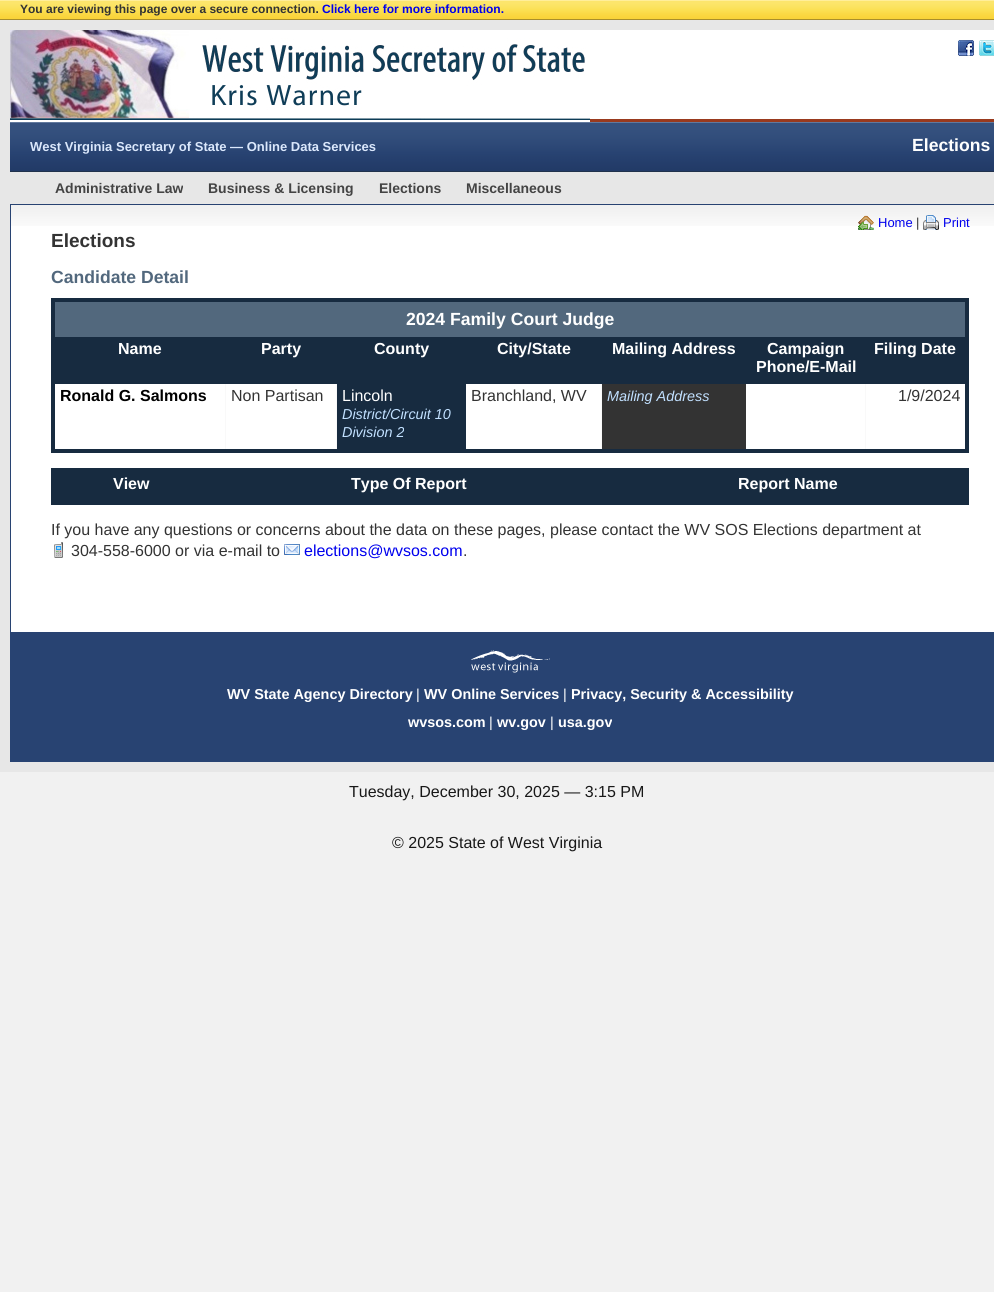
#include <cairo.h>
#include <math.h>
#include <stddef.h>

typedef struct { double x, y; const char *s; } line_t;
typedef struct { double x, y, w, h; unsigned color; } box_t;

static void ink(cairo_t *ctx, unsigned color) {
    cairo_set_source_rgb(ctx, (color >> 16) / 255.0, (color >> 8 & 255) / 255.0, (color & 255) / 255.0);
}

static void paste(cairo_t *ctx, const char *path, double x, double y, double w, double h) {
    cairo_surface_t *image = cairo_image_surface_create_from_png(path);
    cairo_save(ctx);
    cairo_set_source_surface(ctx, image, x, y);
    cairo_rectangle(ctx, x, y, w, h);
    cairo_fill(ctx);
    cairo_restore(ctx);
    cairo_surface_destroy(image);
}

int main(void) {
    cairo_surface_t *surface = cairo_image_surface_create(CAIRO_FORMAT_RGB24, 994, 1292);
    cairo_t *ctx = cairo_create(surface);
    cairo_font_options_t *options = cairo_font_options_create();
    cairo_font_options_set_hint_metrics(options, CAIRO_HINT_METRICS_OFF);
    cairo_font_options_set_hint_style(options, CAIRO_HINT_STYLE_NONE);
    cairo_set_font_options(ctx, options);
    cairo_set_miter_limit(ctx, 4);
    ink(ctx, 0xF1F1F1);
    cairo_paint(ctx);
    paste(ctx, "media/1.png", 0, 0, 994, 20);
    cairo_select_font_face(ctx, "Liberation Sans", CAIRO_FONT_SLANT_NORMAL, CAIRO_FONT_WEIGHT_BOLD);
    cairo_set_font_size(ctx, 12);
    ink(ctx, 0x333333);
    cairo_move_to(ctx, 20, 13);
    cairo_show_text(ctx, "You are viewing this page over a secure connection.");
    ink(ctx, 0x0000EE);
    cairo_move_to(ctx, 322, 13);
    cairo_show_text(ctx, "Click here for more information.");
    ink(ctx, 0xFFFFFF);
    cairo_rectangle(ctx, 11, 30, 983, 602);
    cairo_fill(ctx);
    cairo_rectangle(ctx, 5, 25, 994, 742);
    ink(ctx, 0xE7E7E7);
    cairo_set_line_width(ctx, 10);
    cairo_stroke(ctx);
    ink(ctx, 0x993A1E);
    cairo_rectangle(ctx, 590, 119, 404, 3);
    cairo_fill(ctx);
    ink(ctx, 0xFFFFFF);
    cairo_rectangle(ctx, 10, 120, 1, 2);
    cairo_fill(ctx);
    paste(ctx, "media/2.png", 10, 30, 580, 90);
    paste(ctx, "media/3.png", 958, 40, 16, 16);
    paste(ctx, "media/4.png", 979, 40, 15, 16);
    paste(ctx, "media/5.png", 10, 122, 984, 50);
    cairo_set_font_size(ctx, 13);
    ink(ctx, 0xDBE8FC);
    cairo_move_to(ctx, 30, 151);
    cairo_show_text(ctx, "West Virginia Secretary of State — Online Data Services");
    cairo_set_font_size(ctx, 17.6);
    ink(ctx, 0xFFFFFF);
    cairo_move_to(ctx, 912, 151);
    cairo_show_text(ctx, "Elections");
    ink(ctx, 0xE7E7E7);
    cairo_rectangle(ctx, 10, 172, 984, 32);
    cairo_fill(ctx);
    cairo_set_font_size(ctx, 14);
    ink(ctx, 0x444444);
    {
        static const line_t items[] = {
            {55, 193, "Administrative Law"},
            {208, 193, "Business & Licensing"},
            {379, 193, "Elections"},
            {466, 193, "Miscellaneous"},
        };
        for (size_t i = 0; i < sizeof items / sizeof *items; i++) {
            cairo_move_to(ctx, items[i].x, items[i].y);
            cairo_show_text(ctx, items[i].s);
        }
    }
    paste(ctx, "media/6.png", 11, 205, 983, 21);
    cairo_rectangle(ctx, 10.5, 204.5, 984, 428);
    ink(ctx, 0x284372);
    cairo_set_line_width(ctx, 1);
    cairo_stroke(ctx);
    paste(ctx, "media/7.png", 858, 215, 16, 15);
    cairo_select_font_face(ctx, "Liberation Sans", CAIRO_FONT_SLANT_NORMAL, CAIRO_FONT_WEIGHT_NORMAL);
    cairo_set_font_size(ctx, 13);
    ink(ctx, 0x0000EE);
    cairo_move_to(ctx, 878, 227);
    cairo_show_text(ctx, "Home");
    ink(ctx, 0x333333);
    cairo_move_to(ctx, 916, 227);
    cairo_show_text(ctx, "|");
    paste(ctx, "media/8.png", 923, 215, 16, 15);
    ink(ctx, 0x0000EE);
    cairo_move_to(ctx, 943, 227);
    cairo_show_text(ctx, "Print");
    cairo_select_font_face(ctx, "Liberation Sans", CAIRO_FONT_SLANT_NORMAL, CAIRO_FONT_WEIGHT_BOLD);
    cairo_set_font_size(ctx, 19);
    ink(ctx, 0x333333);
    cairo_move_to(ctx, 51, 247);
    cairo_show_text(ctx, "Elections");
    cairo_set_font_size(ctx, 17.6);
    ink(ctx, 0x52687D);
    cairo_move_to(ctx, 51, 283);
    cairo_show_text(ctx, "Candidate Detail");
    {
        static const box_t items[] = {
            {51, 298, 918, 4, 0x172B40},
            {965, 298, 4, 155, 0x172B40},
            {225, 384, 1, 68, 0xF9F9F9},
            {336, 384, 1, 68, 0xF9F9F9},
            {601, 384, 1, 68, 0xF9F9F9},
            {865, 384, 1, 68, 0xF9F9F9},
            {51, 449, 918, 4, 0x172B40},
            {51, 298, 4, 155, 0x172B40},
            {55, 302, 910, 35, 0x52687D},
        };
        for (size_t i = 0; i < sizeof items / sizeof *items; i++) {
            ink(ctx, items[i].color);
            cairo_rectangle(ctx, items[i].x, items[i].y, items[i].w, items[i].h);
            cairo_fill(ctx);
        }
    }
    ink(ctx, 0xFFFFFF);
    cairo_move_to(ctx, 406, 325);
    cairo_show_text(ctx, "2024 Family Court Judge");
    ink(ctx, 0x172B40);
    cairo_rectangle(ctx, 55, 337, 910, 47);
    cairo_fill(ctx);
    cairo_set_font_size(ctx, 16);
    ink(ctx, 0xFFFFFF);
    {
        static const line_t items[] = {
            {118, 354, "Name"},
            {261, 354, "Party"},
            {374, 354, "County"},
            {497, 354, "City/State"},
            {612, 354, "Mailing Address"},
            {767, 354, "Campaign"},
            {756, 372, "Phone/E-Mail"},
            {874, 354, "Filing Date"},
        };
        for (size_t i = 0; i < sizeof items / sizeof *items; i++) {
            cairo_move_to(ctx, items[i].x, items[i].y);
            cairo_show_text(ctx, items[i].s);
        }
    }
    ink(ctx, 0x000000);
    cairo_move_to(ctx, 60, 401);
    cairo_show_text(ctx, "Ronald G. Salmons");
    cairo_select_font_face(ctx, "Liberation Sans", CAIRO_FONT_SLANT_NORMAL, CAIRO_FONT_WEIGHT_NORMAL);
    ink(ctx, 0x333333);
    cairo_move_to(ctx, 231, 401);
    cairo_show_text(ctx, "Non Partisan");
    ink(ctx, 0x172B40);
    cairo_rectangle(ctx, 337, 384, 129, 65);
    cairo_fill(ctx);
    ink(ctx, 0xFFFFFF);
    cairo_move_to(ctx, 342, 401);
    cairo_show_text(ctx, "Lincoln");
    cairo_select_font_face(ctx, "Liberation Sans", CAIRO_FONT_SLANT_ITALIC, CAIRO_FONT_WEIGHT_NORMAL);
    cairo_set_font_size(ctx, 14.4);
    ink(ctx, 0xC1E0FF);
    cairo_move_to(ctx, 342, 419);
    cairo_show_text(ctx, "District/Circuit 10");
    cairo_move_to(ctx, 342, 437);
    cairo_show_text(ctx, "Division 2");
    cairo_select_font_face(ctx, "Liberation Sans", CAIRO_FONT_SLANT_NORMAL, CAIRO_FONT_WEIGHT_NORMAL);
    cairo_set_font_size(ctx, 16);
    ink(ctx, 0x333333);
    cairo_move_to(ctx, 471, 401);
    cairo_show_text(ctx, "Branchland, WV");
    cairo_rectangle(ctx, 602, 384, 144, 65);
    cairo_fill(ctx);
    cairo_select_font_face(ctx, "Liberation Sans", CAIRO_FONT_SLANT_ITALIC, CAIRO_FONT_WEIGHT_NORMAL);
    cairo_set_font_size(ctx, 14.4);
    ink(ctx, 0xC1E0FF);
    cairo_move_to(ctx, 607, 401);
    cairo_show_text(ctx, "Mailing Address");
    cairo_select_font_face(ctx, "Liberation Sans", CAIRO_FONT_SLANT_NORMAL, CAIRO_FONT_WEIGHT_NORMAL);
    cairo_set_font_size(ctx, 16);
    ink(ctx, 0x333333);
    cairo_move_to(ctx, 898, 401);
    cairo_show_text(ctx, "1/9/2024");
    {
        static const box_t items[] = {
            {51, 468, 918, 4, 0x172B40},
            {965, 468, 4, 37, 0x172B40},
            {51, 501, 918, 4, 0x172B40},
            {51, 468, 4, 37, 0x172B40},
            {55, 472, 910, 29, 0x172B40},
        };
        for (size_t i = 0; i < sizeof items / sizeof *items; i++) {
            ink(ctx, items[i].color);
            cairo_rectangle(ctx, items[i].x, items[i].y, items[i].w, items[i].h);
            cairo_fill(ctx);
        }
    }
    cairo_select_font_face(ctx, "Liberation Sans", CAIRO_FONT_SLANT_NORMAL, CAIRO_FONT_WEIGHT_BOLD);
    ink(ctx, 0xFFFFFF);
    {
        static const line_t items[] = {
            {113, 489, "View"},
            {351, 489, "Type Of Report"},
            {738, 489, "Report Name"},
        };
        for (size_t i = 0; i < sizeof items / sizeof *items; i++) {
            cairo_move_to(ctx, items[i].x, items[i].y);
            cairo_show_text(ctx, items[i].s);
        }
    }
    cairo_select_font_face(ctx, "Liberation Sans", CAIRO_FONT_SLANT_NORMAL, CAIRO_FONT_WEIGHT_NORMAL);
    ink(ctx, 0x333333);
    cairo_move_to(ctx, 51, 535);
    cairo_show_text(ctx, "If you have any questions or concerns about the data on these pages, please contact the WV SOS Elections department at");
    paste(ctx, "media/9.png", 54, 542, 9, 16);
    cairo_move_to(ctx, 71, 556);
    cairo_show_text(ctx, "304-558-6000 or via e-mail to");
    paste(ctx, "media/10.png", 284, 544, 16, 11);
    ink(ctx, 0x0000EE);
    cairo_move_to(ctx, 304, 556);
    cairo_show_text(ctx, "elections@wvsos.com");
    ink(ctx, 0x333333);
    cairo_move_to(ctx, 463, 556);
    cairo_show_text(ctx, ".");
    ink(ctx, 0x284372);
    cairo_rectangle(ctx, 10, 633, 984, 129);
    cairo_fill(ctx);
    paste(ctx, "media/11.png", 471, 650, 79, 23);
    cairo_select_font_face(ctx, "Liberation Sans", CAIRO_FONT_SLANT_NORMAL, CAIRO_FONT_WEIGHT_BOLD);
    cairo_set_font_size(ctx, 14.4);
    ink(ctx, 0xFFFFFF);
    cairo_move_to(ctx, 227, 699);
    cairo_show_text(ctx, "WV State Agency Directory");
    cairo_select_font_face(ctx, "Liberation Sans", CAIRO_FONT_SLANT_NORMAL, CAIRO_FONT_WEIGHT_NORMAL);
    cairo_move_to(ctx, 416, 699);
    cairo_show_text(ctx, "|");
    cairo_select_font_face(ctx, "Liberation Sans", CAIRO_FONT_SLANT_NORMAL, CAIRO_FONT_WEIGHT_BOLD);
    cairo_move_to(ctx, 424, 699);
    cairo_show_text(ctx, "WV Online Services");
    cairo_select_font_face(ctx, "Liberation Sans", CAIRO_FONT_SLANT_NORMAL, CAIRO_FONT_WEIGHT_NORMAL);
    cairo_move_to(ctx, 563, 699);
    cairo_show_text(ctx, "|");
    cairo_select_font_face(ctx, "Liberation Sans", CAIRO_FONT_SLANT_NORMAL, CAIRO_FONT_WEIGHT_BOLD);
    cairo_move_to(ctx, 571, 699);
    cairo_show_text(ctx, "Privacy, Security & Accessibility");
    cairo_move_to(ctx, 408, 727);
    cairo_show_text(ctx, "wvsos.com");
    cairo_select_font_face(ctx, "Liberation Sans", CAIRO_FONT_SLANT_NORMAL, CAIRO_FONT_WEIGHT_NORMAL);
    cairo_move_to(ctx, 489, 727);
    cairo_show_text(ctx, "|");
    cairo_select_font_face(ctx, "Liberation Sans", CAIRO_FONT_SLANT_NORMAL, CAIRO_FONT_WEIGHT_BOLD);
    cairo_move_to(ctx, 497, 727);
    cairo_show_text(ctx, "wv.gov");
    cairo_select_font_face(ctx, "Liberation Sans", CAIRO_FONT_SLANT_NORMAL, CAIRO_FONT_WEIGHT_NORMAL);
    cairo_move_to(ctx, 550, 727);
    cairo_show_text(ctx, "|");
    cairo_select_font_face(ctx, "Liberation Sans", CAIRO_FONT_SLANT_NORMAL, CAIRO_FONT_WEIGHT_BOLD);
    cairo_move_to(ctx, 558, 727);
    cairo_show_text(ctx, "usa.gov");
    cairo_select_font_face(ctx, "Liberation Sans", CAIRO_FONT_SLANT_NORMAL, CAIRO_FONT_WEIGHT_NORMAL);
    cairo_set_font_size(ctx, 16);
    ink(ctx, 0x181818);
    cairo_move_to(ctx, 349, 797);
    cairo_show_text(ctx, "Tuesday, December 30, 2025 — 3:15 PM");
    cairo_move_to(ctx, 392, 848);
    cairo_show_text(ctx, "© 2025 State of West Virginia");
    cairo_surface_write_to_png(surface, "image.png");
    cairo_font_options_destroy(options);
    cairo_destroy(ctx);
    cairo_surface_destroy(surface);
    return 0;
}
